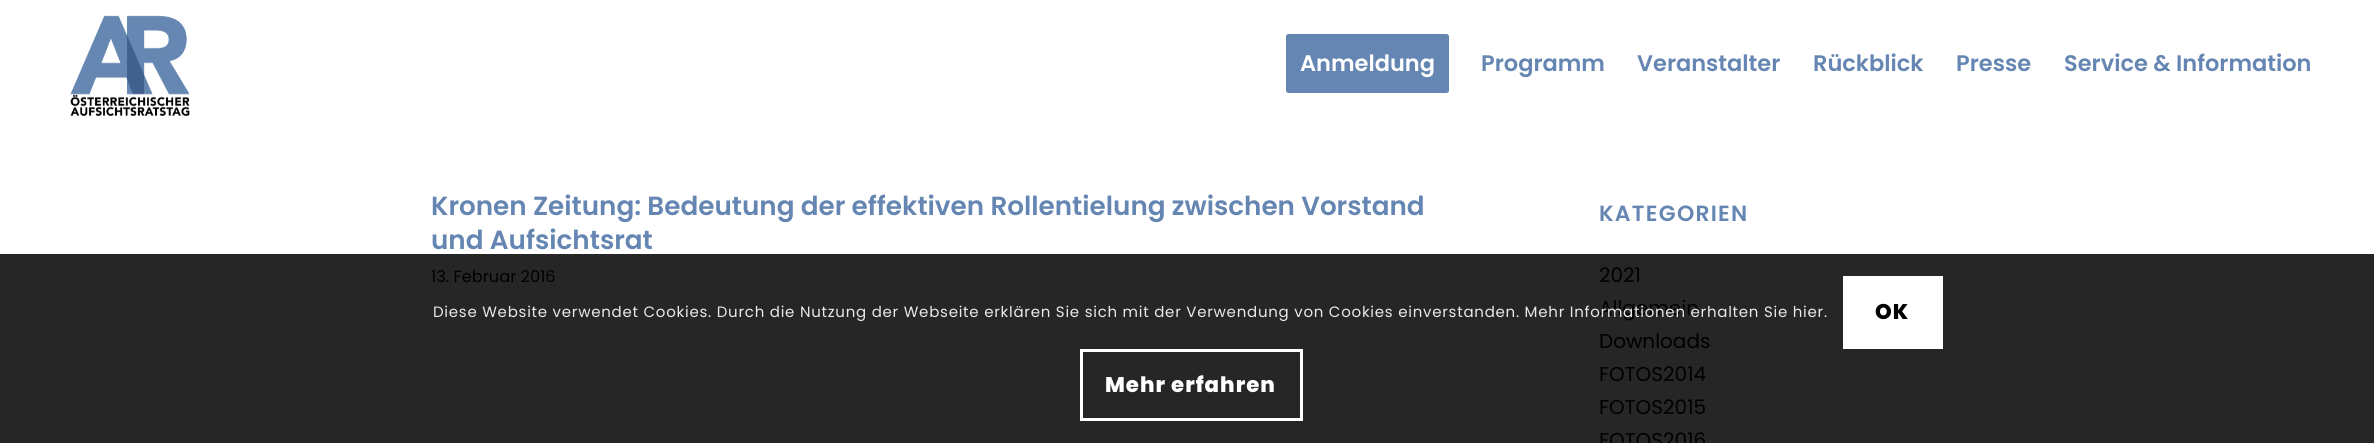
#include <cairo.h>
#include <math.h>
#include <stddef.h>

typedef struct { double x, y; const char *s; } line_t;

static void ink(cairo_t *ctx, unsigned color) {
    cairo_set_source_rgb(ctx, (color >> 16) / 255.0, (color >> 8 & 255) / 255.0, (color & 255) / 255.0);
}

static void write_spaced(cairo_t *ctx, double x, double y, const char *s, double letter, double word) {
    cairo_move_to(ctx, x, y);
    while (*s) {
        char ch[5] = {0};
        int n = 0;
        do ch[n++] = *s++; while ((*s & 0xC0) == 0x80);
        cairo_show_text(ctx, ch);
        cairo_rel_move_to(ctx, letter + word * (*ch == ' '), 0);
    }
}

static void round_path(cairo_t *ctx, double x, double y, double w, double h, double r) {
    cairo_new_sub_path(ctx);
    cairo_arc(ctx, x + w - r, y + h - r, r, 0, M_PI / 2);
    cairo_arc(ctx, x + r, y + h - r, r, M_PI / 2, M_PI);
    cairo_arc(ctx, x + r, y + r, r, M_PI, 1.5 * M_PI);
    cairo_arc(ctx, x + w - r, y + r, r, 1.5 * M_PI, 2 * M_PI);
    cairo_close_path(ctx);
}

static void paste(cairo_t *ctx, const char *path, double x, double y, double w, double h) {
    cairo_surface_t *image = cairo_image_surface_create_from_png(path);
    cairo_save(ctx);
    cairo_set_source_surface(ctx, image, x, y);
    cairo_rectangle(ctx, x, y, w, h);
    cairo_fill(ctx);
    cairo_restore(ctx);
    cairo_surface_destroy(image);
}

int main(void) {
    cairo_surface_t *surface = cairo_image_surface_create(CAIRO_FORMAT_RGB24, 2374, 443);
    cairo_t *ctx = cairo_create(surface);
    cairo_font_options_t *options = cairo_font_options_create();
    cairo_font_options_set_hint_metrics(options, CAIRO_HINT_METRICS_OFF);
    cairo_font_options_set_hint_style(options, CAIRO_HINT_STYLE_NONE);
    cairo_set_font_options(ctx, options);
    cairo_set_miter_limit(ctx, 4);
    ink(ctx, 0xFFFFFF);
    cairo_paint(ctx);
    ink(ctx, 0x262626);
    cairo_rectangle(ctx, 0, 254, 2374, 189);
    cairo_fill(ctx);
    paste(ctx, "media/1.png", 70, 15, 120, 101);
    ink(ctx, 0x6586B2);
    round_path(ctx, 1287.5, 35.5, 160, 56, 1);
    cairo_fill_preserve(ctx);
    cairo_set_line_width(ctx, 3);
    cairo_stroke(ctx);
    cairo_select_font_face(ctx, "Poppins SemiBold", CAIRO_FONT_SLANT_NORMAL, CAIRO_FONT_WEIGHT_NORMAL);
    cairo_set_font_size(ctx, 22.5);
    ink(ctx, 0xFFFFFF);
    cairo_move_to(ctx, 1300, 71);
    cairo_show_text(ctx, "Anmeldung");
    ink(ctx, 0x6586B2);
    {
        static const line_t items[] = {
            {1481, 71, "Programm"},
            {1637, 71, "Veranstalter"},
            {1813, 71, "Rückblick"},
            {1956, 71, "Presse"},
            {2064, 71, "Service & Information"},
        };
        for (size_t i = 0; i < sizeof items / sizeof *items; i++) {
            cairo_move_to(ctx, items[i].x, items[i].y);
            cairo_show_text(ctx, items[i].s);
        }
    }
    cairo_set_font_size(ctx, 26.25);
    cairo_move_to(ctx, 431, 215);
    cairo_show_text(ctx, "Kronen Zeitung: Bedeutung der effektiven Rollentielung zwischen Vorstand");
    cairo_move_to(ctx, 431, 249);
    cairo_show_text(ctx, "und Aufsichtsrat");
    cairo_select_font_face(ctx, "Poppins", CAIRO_FONT_SLANT_NORMAL, CAIRO_FONT_WEIGHT_NORMAL);
    cairo_set_font_size(ctx, 16.25);
    ink(ctx, 0x000000);
    cairo_move_to(ctx, 431, 282);
    cairo_show_text(ctx, "13. Februar 2016");
    cairo_select_font_face(ctx, "Poppins SemiBold", CAIRO_FONT_SLANT_NORMAL, CAIRO_FONT_WEIGHT_NORMAL);
    cairo_set_font_size(ctx, 22);
    ink(ctx, 0x6586B2);
    write_spaced(ctx, 1599, 221, "KATEGORIEN", 1.25, 0);
    cairo_select_font_face(ctx, "Poppins", CAIRO_FONT_SLANT_NORMAL, CAIRO_FONT_WEIGHT_NORMAL);
    cairo_set_font_size(ctx, 20);
    ink(ctx, 0x000000);
    {
        static const line_t items[] = {
            {1599, 282, "2021"},
            {1599, 315, "Allgemein"},
            {1599, 348, "Downloads"},
            {1599, 381, "FOTOS2014"},
            {1599, 414, "FOTOS2015"},
            {1599, 447, "FOTOS2016"},
        };
        for (size_t i = 0; i < sizeof items / sizeof *items; i++) {
            cairo_move_to(ctx, items[i].x, items[i].y);
            cairo_show_text(ctx, items[i].s);
        }
    }
    cairo_set_font_size(ctx, 15);
    ink(ctx, 0xE9E9E9);
    write_spaced(ctx, 433, 317, "Diese Website verwendet Cookies. Durch die Nutzung der Webseite erklären Sie sich mit der Verwendung von Cookies einverstanden. Mehr Informationen erhalten Sie hier.", 0.75, 0);
    ink(ctx, 0xFFFFFF);
    cairo_rectangle(ctx, 1843, 276, 100, 73);
    cairo_fill(ctx);
    cairo_select_font_face(ctx, "Poppins ExtraBold", CAIRO_FONT_SLANT_NORMAL, CAIRO_FONT_WEIGHT_NORMAL);
    cairo_set_font_size(ctx, 21.25);
    ink(ctx, 0x000000);
    write_spaced(ctx, 1875, 319, "OK", 1, 0);
    cairo_rectangle(ctx, 1081.5, 350.5, 220, 69);
    ink(ctx, 0xFFFFFF);
    cairo_stroke(ctx);
    write_spaced(ctx, 1105, 392, "Mehr erfahren", 1, 0);
    cairo_surface_write_to_png(surface, "image.png");
    cairo_font_options_destroy(options);
    cairo_destroy(ctx);
    cairo_surface_destroy(surface);
    return 0;
}
